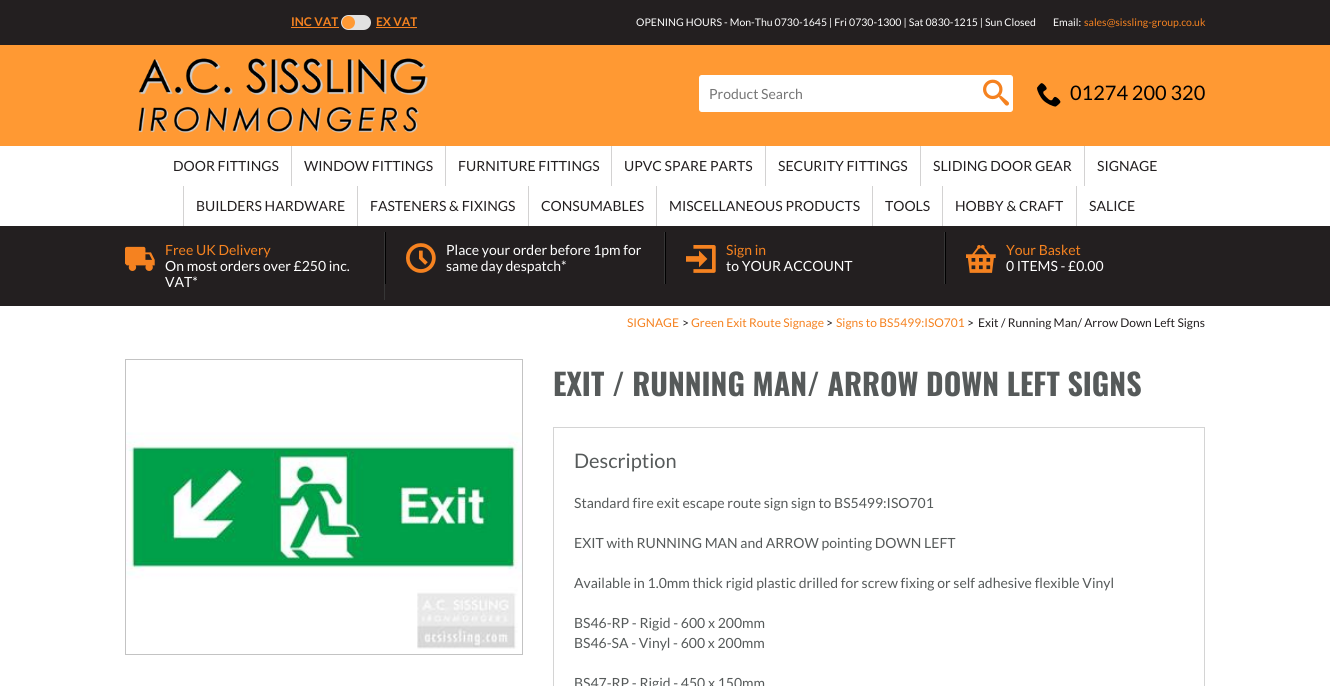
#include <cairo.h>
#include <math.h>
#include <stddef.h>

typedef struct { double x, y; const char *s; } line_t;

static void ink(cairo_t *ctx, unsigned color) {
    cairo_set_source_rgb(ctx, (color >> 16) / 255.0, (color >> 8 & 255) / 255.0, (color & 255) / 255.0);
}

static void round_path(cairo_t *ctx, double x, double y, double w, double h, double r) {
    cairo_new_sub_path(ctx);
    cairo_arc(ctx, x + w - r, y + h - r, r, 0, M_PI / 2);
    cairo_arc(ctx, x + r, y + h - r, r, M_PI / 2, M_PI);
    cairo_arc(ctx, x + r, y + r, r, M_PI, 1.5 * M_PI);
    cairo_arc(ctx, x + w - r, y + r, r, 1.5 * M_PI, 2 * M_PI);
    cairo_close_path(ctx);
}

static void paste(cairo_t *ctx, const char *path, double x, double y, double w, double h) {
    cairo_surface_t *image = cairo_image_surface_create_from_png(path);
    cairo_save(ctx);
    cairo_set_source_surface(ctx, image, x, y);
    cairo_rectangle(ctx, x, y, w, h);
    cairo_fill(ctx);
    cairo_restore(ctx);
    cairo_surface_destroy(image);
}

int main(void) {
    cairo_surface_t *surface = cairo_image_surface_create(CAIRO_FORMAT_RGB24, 1330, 686);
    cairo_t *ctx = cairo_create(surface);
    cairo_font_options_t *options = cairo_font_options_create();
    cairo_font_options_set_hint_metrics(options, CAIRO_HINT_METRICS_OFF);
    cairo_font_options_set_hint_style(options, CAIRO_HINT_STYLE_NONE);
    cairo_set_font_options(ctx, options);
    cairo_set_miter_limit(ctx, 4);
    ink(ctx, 0xFFFFFF);
    cairo_paint(ctx);
    ink(ctx, 0x231F20);
    cairo_rectangle(ctx, 0, 0, 1330, 45);
    cairo_fill(ctx);
    cairo_select_font_face(ctx, "Lato", CAIRO_FONT_SLANT_NORMAL, CAIRO_FONT_WEIGHT_BOLD);
    cairo_set_font_size(ctx, 12);
    ink(ctx, 0xF58220);
    cairo_move_to(ctx, 291, 26);
    cairo_show_text(ctx, "INC VAT");
    cairo_rectangle(ctx, 291, 27, 48, 1);
    cairo_fill(ctx);
    ink(ctx, 0xE1E1E1);
    round_path(ctx, 341, 15, 30, 15, 7.5);
    cairo_fill(ctx);
    ink(ctx, 0xFF9933);
    cairo_arc(ctx, 348.5, 22.5, 6.5, 0, 2 * M_PI);
    cairo_fill(ctx);
    ink(ctx, 0xF58220);
    cairo_move_to(ctx, 376, 26);
    cairo_show_text(ctx, "EX VAT");
    cairo_rectangle(ctx, 376, 27, 41, 1);
    cairo_fill(ctx);
    cairo_select_font_face(ctx, "Lato", CAIRO_FONT_SLANT_NORMAL, CAIRO_FONT_WEIGHT_NORMAL);
    cairo_set_font_size(ctx, 10.5);
    ink(ctx, 0xFFFFFF);
    cairo_move_to(ctx, 636, 26);
    cairo_show_text(ctx, "OPENING HOURS - Mon-Thu 0730-1645 | Fri 0730-1300 | Sat 0830-1215 | Sun Closed");
    cairo_move_to(ctx, 1053, 26);
    cairo_show_text(ctx, "Email:");
    ink(ctx, 0xF58220);
    cairo_move_to(ctx, 1084, 26);
    cairo_show_text(ctx, "sales@sissling-group.co.uk");
    ink(ctx, 0xFF9933);
    cairo_rectangle(ctx, 0, 45, 1330, 101);
    cairo_fill(ctx);
    paste(ctx, "media/1.png", 138, 58, 290, 75);
    ink(ctx, 0xFFFFFF);
    cairo_new_path(ctx);
    cairo_move_to(ctx, 702, 75.5);
    cairo_line_to(ctx, 978.5, 75.5);
    cairo_line_to(ctx, 978.5, 111.5);
    cairo_line_to(ctx, 702, 111.5);
    cairo_curve_to(ctx, 700.5, 111.5, 699.5, 110.5, 699.5, 109);
    cairo_line_to(ctx, 699.5, 78);
    cairo_curve_to(ctx, 699.5, 76.5, 700.5, 75.5, 702, 75.5);
    cairo_close_path(ctx);
    cairo_fill_preserve(ctx);
    cairo_set_line_width(ctx, 1);
    cairo_stroke(ctx);
    cairo_set_font_size(ctx, 14);
    ink(ctx, 0x757575);
    cairo_move_to(ctx, 709, 99);
    cairo_show_text(ctx, "Product Search");
    ink(ctx, 0xFFFFFF);
    cairo_new_path(ctx);
    cairo_move_to(ctx, 979.5, 75.5);
    cairo_line_to(ctx, 1010, 75.5);
    cairo_curve_to(ctx, 1011.5, 75.5, 1012.5, 76.5, 1012.5, 78);
    cairo_line_to(ctx, 1012.5, 109);
    cairo_curve_to(ctx, 1012.5, 110.5, 1011.5, 111.5, 1010, 111.5);
    cairo_line_to(ctx, 979.5, 111.5);
    cairo_close_path(ctx);
    cairo_fill_preserve(ctx);
    cairo_stroke(ctx);
    paste(ctx, "media/2.png", 983, 79, 26, 27);
    paste(ctx, "media/3.png", 1037, 83, 24, 24);
    cairo_set_font_size(ctx, 20);
    ink(ctx, 0x000000);
    cairo_move_to(ctx, 1070, 100);
    cairo_show_text(ctx, "01274 200 320");
    cairo_set_font_size(ctx, 14);
    ink(ctx, 0x231F20);
    cairo_move_to(ctx, 173, 171);
    cairo_show_text(ctx, "DOOR FITTINGS");
    ink(ctx, 0xD3D2D2);
    cairo_rectangle(ctx, 291, 146, 1, 40);
    cairo_fill(ctx);
    ink(ctx, 0x231F20);
    cairo_move_to(ctx, 304, 171);
    cairo_show_text(ctx, "WINDOW FITTINGS");
    ink(ctx, 0xD3D2D2);
    cairo_rectangle(ctx, 445, 146, 1, 40);
    cairo_fill(ctx);
    ink(ctx, 0x231F20);
    cairo_move_to(ctx, 458, 171);
    cairo_show_text(ctx, "FURNITURE FITTINGS");
    ink(ctx, 0xD3D2D2);
    cairo_rectangle(ctx, 611, 146, 1, 40);
    cairo_fill(ctx);
    ink(ctx, 0x231F20);
    cairo_move_to(ctx, 624, 171);
    cairo_show_text(ctx, "UPVC SPARE PARTS");
    ink(ctx, 0xD3D2D2);
    cairo_rectangle(ctx, 765, 146, 1, 40);
    cairo_fill(ctx);
    ink(ctx, 0x231F20);
    cairo_move_to(ctx, 778, 171);
    cairo_show_text(ctx, "SECURITY FITTINGS");
    ink(ctx, 0xD3D2D2);
    cairo_rectangle(ctx, 920, 146, 1, 40);
    cairo_fill(ctx);
    ink(ctx, 0x231F20);
    cairo_move_to(ctx, 933, 171);
    cairo_show_text(ctx, "SLIDING DOOR GEAR");
    ink(ctx, 0xD3D2D2);
    cairo_rectangle(ctx, 1084, 146, 1, 40);
    cairo_fill(ctx);
    ink(ctx, 0x231F20);
    cairo_move_to(ctx, 1097, 171);
    cairo_show_text(ctx, "SIGNAGE");
    ink(ctx, 0xD3D2D2);
    cairo_rectangle(ctx, 183, 186, 1, 40);
    cairo_fill(ctx);
    ink(ctx, 0x231F20);
    cairo_move_to(ctx, 196, 211);
    cairo_show_text(ctx, "BUILDERS HARDWARE");
    ink(ctx, 0xD3D2D2);
    cairo_rectangle(ctx, 357, 186, 1, 40);
    cairo_fill(ctx);
    ink(ctx, 0x231F20);
    cairo_move_to(ctx, 370, 211);
    cairo_show_text(ctx, "FASTENERS & FIXINGS");
    ink(ctx, 0xD3D2D2);
    cairo_rectangle(ctx, 528, 186, 1, 40);
    cairo_fill(ctx);
    ink(ctx, 0x231F20);
    cairo_move_to(ctx, 541, 211);
    cairo_show_text(ctx, "CONSUMABLES");
    ink(ctx, 0xD3D2D2);
    cairo_rectangle(ctx, 656, 186, 1, 40);
    cairo_fill(ctx);
    ink(ctx, 0x231F20);
    cairo_move_to(ctx, 669, 211);
    cairo_show_text(ctx, "MISCELLANEOUS PRODUCTS");
    ink(ctx, 0xD3D2D2);
    cairo_rectangle(ctx, 872, 186, 1, 40);
    cairo_fill(ctx);
    ink(ctx, 0x231F20);
    cairo_move_to(ctx, 885, 211);
    cairo_show_text(ctx, "TOOLS");
    ink(ctx, 0xD3D2D2);
    cairo_rectangle(ctx, 942, 186, 1, 40);
    cairo_fill(ctx);
    ink(ctx, 0x231F20);
    cairo_move_to(ctx, 955, 211);
    cairo_show_text(ctx, "HOBBY & CRAFT");
    ink(ctx, 0xD3D2D2);
    cairo_rectangle(ctx, 1076, 186, 1, 40);
    cairo_fill(ctx);
    ink(ctx, 0x231F20);
    cairo_move_to(ctx, 1089, 211);
    cairo_show_text(ctx, "SALICE");
    cairo_rectangle(ctx, 0, 226, 1330, 80);
    cairo_fill(ctx);
    ink(ctx, 0x363636);
    cairo_rectangle(ctx, 384, 232, 1, 68);
    cairo_fill(ctx);
    paste(ctx, "media/4.png", 125, 246, 30, 25);
    ink(ctx, 0xF58220);
    cairo_move_to(ctx, 165, 255);
    cairo_show_text(ctx, "Free UK Delivery");
    ink(ctx, 0xFFFFFF);
    cairo_move_to(ctx, 165, 271);
    cairo_show_text(ctx, "On most orders over £250 inc.");
    cairo_move_to(ctx, 165, 287);
    cairo_show_text(ctx, "VAT*");
    ink(ctx, 0x363636);
    cairo_rectangle(ctx, 664, 232, 1, 52);
    cairo_fill(ctx);
    ink(ctx, 0x000000);
    cairo_rectangle(ctx, 385, 232, 1, 52);
    cairo_fill(ctx);
    paste(ctx, "media/5.png", 406, 243, 30, 30);
    ink(ctx, 0xFFFFFF);
    cairo_move_to(ctx, 446, 255);
    cairo_show_text(ctx, "Place your order before 1pm for");
    cairo_move_to(ctx, 446, 271);
    cairo_show_text(ctx, "same day despatch*");
    ink(ctx, 0x363636);
    cairo_rectangle(ctx, 944, 232, 1, 52);
    cairo_fill(ctx);
    ink(ctx, 0x000000);
    cairo_rectangle(ctx, 665, 232, 1, 52);
    cairo_fill(ctx);
    paste(ctx, "media/6.png", 686, 245, 30, 28);
    ink(ctx, 0xF58220);
    cairo_move_to(ctx, 726, 255);
    cairo_show_text(ctx, "Sign in");
    ink(ctx, 0xFFFFFF);
    cairo_move_to(ctx, 726, 271);
    cairo_show_text(ctx, "to YOUR ACCOUNT");
    ink(ctx, 0x000000);
    cairo_rectangle(ctx, 945, 232, 1, 52);
    cairo_fill(ctx);
    paste(ctx, "media/7.png", 966, 245, 30, 28);
    ink(ctx, 0xF58220);
    cairo_move_to(ctx, 1006, 255);
    cairo_show_text(ctx, "Your Basket");
    ink(ctx, 0xFFFFFF);
    cairo_move_to(ctx, 1006, 271);
    cairo_show_text(ctx, "0 ITEMS - £0.00");
    cairo_set_font_size(ctx, 12);
    ink(ctx, 0xF58220);
    cairo_move_to(ctx, 627, 327);
    cairo_show_text(ctx, "SIGNAGE");
    ink(ctx, 0x231F20);
    cairo_move_to(ctx, 682, 327);
    cairo_show_text(ctx, ">");
    ink(ctx, 0xF58220);
    cairo_move_to(ctx, 691, 327);
    cairo_show_text(ctx, "Green Exit Route Signage");
    ink(ctx, 0x231F20);
    cairo_move_to(ctx, 826, 327);
    cairo_show_text(ctx, ">");
    ink(ctx, 0xF58220);
    cairo_move_to(ctx, 836, 327);
    cairo_show_text(ctx, "Signs to BS5499:ISO701");
    ink(ctx, 0x231F20);
    cairo_move_to(ctx, 967, 327);
    cairo_show_text(ctx, ">");
    cairo_move_to(ctx, 978, 327);
    cairo_show_text(ctx, "Exit / Running Man/ Arrow Down Left Signs");
    cairo_rectangle(ctx, 125.5, 359.5, 397, 295);
    ink(ctx, 0xC3C3C3);
    cairo_stroke(ctx);
    paste(ctx, "media/8.png", 126, 432, 396, 217);
    cairo_select_font_face(ctx, "Oswald", CAIRO_FONT_SLANT_NORMAL, CAIRO_FONT_WEIGHT_BOLD);
    cairo_set_font_size(ctx, 30);
    ink(ctx, 0x565A5A);
    cairo_move_to(ctx, 553, 396);
    cairo_show_text(ctx, "EXIT / RUNNING MAN/ ARROW DOWN LEFT SIGNS");
    cairo_rectangle(ctx, 553.5, 427.5, 651, 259);
    ink(ctx, 0xD4D4D4);
    cairo_stroke(ctx);
    cairo_select_font_face(ctx, "Lato", CAIRO_FONT_SLANT_NORMAL, CAIRO_FONT_WEIGHT_NORMAL);
    cairo_set_font_size(ctx, 20);
    ink(ctx, 0x565A5A);
    cairo_move_to(ctx, 574, 468);
    cairo_show_text(ctx, "Description");
    cairo_set_font_size(ctx, 14);
    {
        static const line_t items[] = {
            {574, 508, "Standard fire exit escape route sign sign to BS5499:ISO701"},
            {574, 548, "EXIT with RUNNING MAN and ARROW pointing DOWN LEFT"},
            {574, 588, "Available in 1.0mm thick rigid plastic drilled for screw fixing or self adhesive flexible Vinyl"},
            {574, 628, "BS46-RP - Rigid - 600 x 200mm"},
            {574, 648, "BS46-SA - Vinyl - 600 x 200mm"},
            {574, 688, "BS47-RP - Rigid - 450 x 150mm"},
        };
        for (size_t i = 0; i < sizeof items / sizeof *items; i++) {
            cairo_move_to(ctx, items[i].x, items[i].y);
            cairo_show_text(ctx, items[i].s);
        }
    }
    cairo_surface_write_to_png(surface, "image.png");
    cairo_font_options_destroy(options);
    cairo_destroy(ctx);
    cairo_surface_destroy(surface);
    return 0;
}
